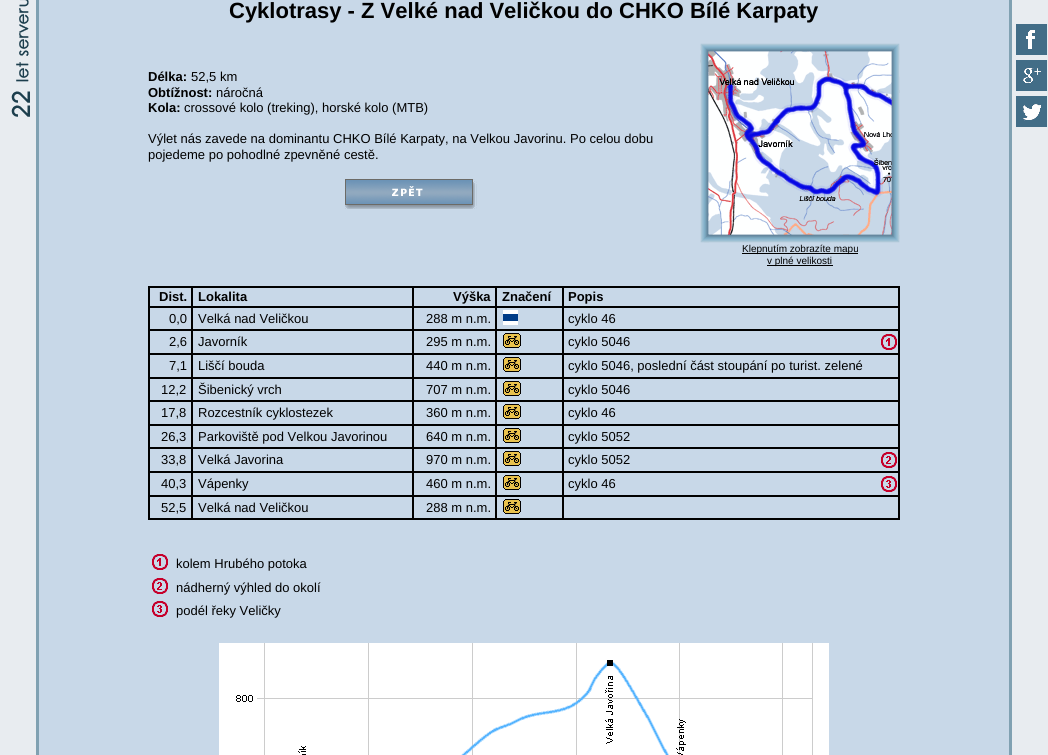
#include <cairo.h>
#include <math.h>
#include <stddef.h>

typedef struct { double x, y; const char *s; } line_t;
typedef struct { double x, y, w, h; unsigned color; } box_t;

static void ink(cairo_t *ctx, unsigned color) {
    cairo_set_source_rgb(ctx, (color >> 16) / 255.0, (color >> 8 & 255) / 255.0, (color & 255) / 255.0);
}

static void paste(cairo_t *ctx, const char *path, double x, double y, double w, double h) {
    cairo_surface_t *image = cairo_image_surface_create_from_png(path);
    cairo_save(ctx);
    cairo_set_source_surface(ctx, image, x, y);
    cairo_rectangle(ctx, x, y, w, h);
    cairo_fill(ctx);
    cairo_restore(ctx);
    cairo_surface_destroy(image);
}

int main(void) {
    cairo_surface_t *surface = cairo_image_surface_create(CAIRO_FORMAT_RGB24, 1048, 755);
    cairo_t *ctx = cairo_create(surface);
    cairo_font_options_t *options = cairo_font_options_create();
    cairo_font_options_set_hint_metrics(options, CAIRO_HINT_METRICS_OFF);
    cairo_font_options_set_hint_style(options, CAIRO_HINT_STYLE_NONE);
    cairo_set_font_options(ctx, options);
    cairo_set_miter_limit(ctx, 4);
    ink(ctx, 0xE8ECF0);
    cairo_paint(ctx);
    {
        static const box_t items[] = {
            {39, 0, 970, 755, 0xC8D8E8},
            {1009, 0, 3, 755, 0x80A1B2},
            {36, 0, 3, 755, 0x80A1B2},
        };
        for (size_t i = 0; i < sizeof items / sizeof *items; i++) {
            ink(ctx, items[i].color);
            cairo_rectangle(ctx, items[i].x, items[i].y, items[i].w, items[i].h);
            cairo_fill(ctx);
        }
    }
    paste(ctx, "media/1.png", 11, 0, 19, 117);
    cairo_select_font_face(ctx, "Liberation Sans", CAIRO_FONT_SLANT_NORMAL, CAIRO_FONT_WEIGHT_BOLD);
    cairo_set_font_size(ctx, 22);
    ink(ctx, 0x000000);
    cairo_move_to(ctx, 229, 18);
    cairo_show_text(ctx, "Cyklotrasy - Z Velké nad Veličkou do CHKO Bílé Karpaty");
    cairo_set_font_size(ctx, 13);
    cairo_move_to(ctx, 148, 81);
    cairo_show_text(ctx, "Délka:");
    cairo_select_font_face(ctx, "Liberation Sans", CAIRO_FONT_SLANT_NORMAL, CAIRO_FONT_WEIGHT_NORMAL);
    cairo_move_to(ctx, 191, 81);
    cairo_show_text(ctx, "52,5 km");
    cairo_select_font_face(ctx, "Liberation Sans", CAIRO_FONT_SLANT_NORMAL, CAIRO_FONT_WEIGHT_BOLD);
    cairo_move_to(ctx, 148, 97);
    cairo_show_text(ctx, "Obtížnost:");
    cairo_select_font_face(ctx, "Liberation Sans", CAIRO_FONT_SLANT_NORMAL, CAIRO_FONT_WEIGHT_NORMAL);
    cairo_move_to(ctx, 216, 97);
    cairo_show_text(ctx, "náročná");
    cairo_select_font_face(ctx, "Liberation Sans", CAIRO_FONT_SLANT_NORMAL, CAIRO_FONT_WEIGHT_BOLD);
    cairo_move_to(ctx, 148, 112);
    cairo_show_text(ctx, "Kola:");
    cairo_select_font_face(ctx, "Liberation Sans", CAIRO_FONT_SLANT_NORMAL, CAIRO_FONT_WEIGHT_NORMAL);
    {
        static const line_t items[] = {
            {184, 112, "crossové kolo (treking), horské kolo (MTB)"},
            {148, 143, "Výlet nás zavede na dominantu CHKO Bílé Karpaty, na Velkou Javorinu. Po celou dobu"},
            {148, 159, "pojedeme po pohodlné zpevněné cestě."},
        };
        for (size_t i = 0; i < sizeof items / sizeof *items; i++) {
            cairo_move_to(ctx, items[i].x, items[i].y);
            cairo_show_text(ctx, items[i].s);
        }
    }
    paste(ctx, "media/2.png", 345, 179, 132, 30);
    paste(ctx, "media/3.png", 700, 43, 200, 200);
    cairo_rectangle(ctx, 742, 253, 116, 1);
    cairo_fill(ctx);
    cairo_set_font_size(ctx, 10);
    cairo_move_to(ctx, 742, 252);
    cairo_show_text(ctx, "Klepnutím zobrazíte mapu");
    cairo_rectangle(ctx, 767, 265, 66, 1);
    cairo_fill(ctx);
    cairo_move_to(ctx, 767, 264);
    cairo_show_text(ctx, "v plné velikosti");
    cairo_rectangle(ctx, 148.5, 286.5, 751, 233);
    cairo_set_line_width(ctx, 1);
    cairo_stroke(ctx);
    cairo_rectangle(ctx, 149.5, 287.5, 42, 19);
    cairo_stroke(ctx);
    cairo_select_font_face(ctx, "Liberation Sans", CAIRO_FONT_SLANT_NORMAL, CAIRO_FONT_WEIGHT_BOLD);
    cairo_set_font_size(ctx, 13);
    cairo_move_to(ctx, 159, 301);
    cairo_show_text(ctx, "Dist.");
    cairo_rectangle(ctx, 192.5, 287.5, 220, 19);
    cairo_stroke(ctx);
    cairo_move_to(ctx, 198, 301);
    cairo_show_text(ctx, "Lokalita");
    cairo_rectangle(ctx, 413.5, 287.5, 82, 19);
    cairo_stroke(ctx);
    cairo_move_to(ctx, 453, 301);
    cairo_show_text(ctx, "Výška");
    cairo_rectangle(ctx, 496.5, 287.5, 66, 19);
    cairo_stroke(ctx);
    cairo_move_to(ctx, 502, 301);
    cairo_show_text(ctx, "Značení");
    cairo_rectangle(ctx, 563.5, 287.5, 335, 19);
    cairo_stroke(ctx);
    cairo_move_to(ctx, 568, 301);
    cairo_show_text(ctx, "Popis");
    cairo_rectangle(ctx, 149.5, 307.5, 42, 22);
    cairo_stroke(ctx);
    cairo_select_font_face(ctx, "Liberation Sans", CAIRO_FONT_SLANT_NORMAL, CAIRO_FONT_WEIGHT_NORMAL);
    cairo_move_to(ctx, 169, 323);
    cairo_show_text(ctx, "0,0");
    cairo_rectangle(ctx, 192.5, 307.5, 220, 22);
    cairo_stroke(ctx);
    cairo_move_to(ctx, 198, 323);
    cairo_show_text(ctx, "Velká nad Veličkou");
    cairo_rectangle(ctx, 413.5, 307.5, 82, 22);
    cairo_stroke(ctx);
    cairo_move_to(ctx, 426, 323);
    cairo_show_text(ctx, "288 m n.m.");
    cairo_rectangle(ctx, 496.5, 307.5, 66, 22);
    cairo_stroke(ctx);
    paste(ctx, "media/4.png", 503, 310, 15, 15);
    cairo_rectangle(ctx, 563.5, 307.5, 335, 22);
    cairo_stroke(ctx);
    cairo_move_to(ctx, 568, 323);
    cairo_show_text(ctx, "cyklo 46");
    cairo_rectangle(ctx, 149.5, 330.5, 42, 23);
    cairo_stroke(ctx);
    cairo_move_to(ctx, 169, 346);
    cairo_show_text(ctx, "2,6");
    cairo_rectangle(ctx, 192.5, 330.5, 220, 23);
    cairo_stroke(ctx);
    cairo_move_to(ctx, 198, 346);
    cairo_show_text(ctx, "Javorník");
    cairo_rectangle(ctx, 413.5, 330.5, 82, 23);
    cairo_stroke(ctx);
    cairo_move_to(ctx, 426, 346);
    cairo_show_text(ctx, "295 m n.m.");
    cairo_rectangle(ctx, 496.5, 330.5, 66, 23);
    cairo_stroke(ctx);
    paste(ctx, "media/5.png", 503, 333, 18, 15);
    cairo_rectangle(ctx, 563.5, 330.5, 335, 23);
    cairo_stroke(ctx);
    cairo_move_to(ctx, 568, 346);
    cairo_show_text(ctx, "cyklo 5046");
    paste(ctx, "media/6.png", 881, 334, 16, 16);
    cairo_rectangle(ctx, 149.5, 354.5, 42, 23);
    cairo_stroke(ctx);
    cairo_move_to(ctx, 169, 370);
    cairo_show_text(ctx, "7,1");
    cairo_rectangle(ctx, 192.5, 354.5, 220, 23);
    cairo_stroke(ctx);
    cairo_move_to(ctx, 198, 370);
    cairo_show_text(ctx, "Liščí bouda");
    cairo_rectangle(ctx, 413.5, 354.5, 82, 23);
    cairo_stroke(ctx);
    cairo_move_to(ctx, 426, 370);
    cairo_show_text(ctx, "440 m n.m.");
    cairo_rectangle(ctx, 496.5, 354.5, 66, 23);
    cairo_stroke(ctx);
    paste(ctx, "media/5.png", 503, 357, 18, 15);
    cairo_rectangle(ctx, 563.5, 354.5, 335, 23);
    cairo_stroke(ctx);
    cairo_move_to(ctx, 568, 370);
    cairo_show_text(ctx, "cyklo 5046, poslední část stoupání po turist. zelené");
    cairo_rectangle(ctx, 149.5, 378.5, 42, 22);
    cairo_stroke(ctx);
    cairo_move_to(ctx, 161, 394);
    cairo_show_text(ctx, "12,2");
    cairo_rectangle(ctx, 192.5, 378.5, 220, 22);
    cairo_stroke(ctx);
    cairo_move_to(ctx, 198, 394);
    cairo_show_text(ctx, "Šibenický vrch");
    cairo_rectangle(ctx, 413.5, 378.5, 82, 22);
    cairo_stroke(ctx);
    cairo_move_to(ctx, 426, 394);
    cairo_show_text(ctx, "707 m n.m.");
    cairo_rectangle(ctx, 496.5, 378.5, 66, 22);
    cairo_stroke(ctx);
    paste(ctx, "media/5.png", 503, 381, 18, 15);
    cairo_rectangle(ctx, 563.5, 378.5, 335, 22);
    cairo_stroke(ctx);
    cairo_move_to(ctx, 568, 394);
    cairo_show_text(ctx, "cyklo 5046");
    cairo_rectangle(ctx, 149.5, 401.5, 42, 23);
    cairo_stroke(ctx);
    cairo_move_to(ctx, 161, 417);
    cairo_show_text(ctx, "17,8");
    cairo_rectangle(ctx, 192.5, 401.5, 220, 23);
    cairo_stroke(ctx);
    cairo_move_to(ctx, 198, 417);
    cairo_show_text(ctx, "Rozcestník cyklostezek");
    cairo_rectangle(ctx, 413.5, 401.5, 82, 23);
    cairo_stroke(ctx);
    cairo_move_to(ctx, 426, 417);
    cairo_show_text(ctx, "360 m n.m.");
    cairo_rectangle(ctx, 496.5, 401.5, 66, 23);
    cairo_stroke(ctx);
    paste(ctx, "media/5.png", 503, 404, 18, 15);
    cairo_rectangle(ctx, 563.5, 401.5, 335, 23);
    cairo_stroke(ctx);
    cairo_move_to(ctx, 568, 417);
    cairo_show_text(ctx, "cyklo 46");
    cairo_rectangle(ctx, 149.5, 425.5, 42, 22);
    cairo_stroke(ctx);
    cairo_move_to(ctx, 161, 441);
    cairo_show_text(ctx, "26,3");
    cairo_rectangle(ctx, 192.5, 425.5, 220, 22);
    cairo_stroke(ctx);
    cairo_move_to(ctx, 198, 441);
    cairo_show_text(ctx, "Parkoviště pod Velkou Javorinou");
    cairo_rectangle(ctx, 413.5, 425.5, 82, 22);
    cairo_stroke(ctx);
    cairo_move_to(ctx, 426, 441);
    cairo_show_text(ctx, "640 m n.m.");
    cairo_rectangle(ctx, 496.5, 425.5, 66, 22);
    cairo_stroke(ctx);
    paste(ctx, "media/5.png", 503, 428, 18, 15);
    cairo_rectangle(ctx, 563.5, 425.5, 335, 22);
    cairo_stroke(ctx);
    cairo_move_to(ctx, 568, 441);
    cairo_show_text(ctx, "cyklo 5052");
    cairo_rectangle(ctx, 149.5, 448.5, 42, 23);
    cairo_stroke(ctx);
    cairo_move_to(ctx, 161, 464);
    cairo_show_text(ctx, "33,8");
    cairo_rectangle(ctx, 192.5, 448.5, 220, 23);
    cairo_stroke(ctx);
    cairo_move_to(ctx, 198, 464);
    cairo_show_text(ctx, "Velká Javorina");
    cairo_rectangle(ctx, 413.5, 448.5, 82, 23);
    cairo_stroke(ctx);
    cairo_move_to(ctx, 426, 464);
    cairo_show_text(ctx, "970 m n.m.");
    cairo_rectangle(ctx, 496.5, 448.5, 66, 23);
    cairo_stroke(ctx);
    paste(ctx, "media/5.png", 503, 451, 18, 15);
    cairo_rectangle(ctx, 563.5, 448.5, 335, 23);
    cairo_stroke(ctx);
    cairo_move_to(ctx, 568, 464);
    cairo_show_text(ctx, "cyklo 5052");
    paste(ctx, "media/7.png", 881, 452, 16, 16);
    cairo_rectangle(ctx, 149.5, 472.5, 42, 23);
    cairo_stroke(ctx);
    cairo_move_to(ctx, 161, 488);
    cairo_show_text(ctx, "40,3");
    cairo_rectangle(ctx, 192.5, 472.5, 220, 23);
    cairo_stroke(ctx);
    cairo_move_to(ctx, 198, 488);
    cairo_show_text(ctx, "Vápenky");
    cairo_rectangle(ctx, 413.5, 472.5, 82, 23);
    cairo_stroke(ctx);
    cairo_move_to(ctx, 426, 488);
    cairo_show_text(ctx, "460 m n.m.");
    cairo_rectangle(ctx, 496.5, 472.5, 66, 23);
    cairo_stroke(ctx);
    paste(ctx, "media/5.png", 503, 475, 18, 15);
    cairo_rectangle(ctx, 563.5, 472.5, 335, 23);
    cairo_stroke(ctx);
    cairo_move_to(ctx, 568, 488);
    cairo_show_text(ctx, "cyklo 46");
    paste(ctx, "media/8.png", 881, 476, 16, 16);
    cairo_rectangle(ctx, 149.5, 496.5, 42, 22);
    cairo_stroke(ctx);
    cairo_move_to(ctx, 161, 512);
    cairo_show_text(ctx, "52,5");
    cairo_rectangle(ctx, 192.5, 496.5, 220, 22);
    cairo_stroke(ctx);
    cairo_move_to(ctx, 198, 512);
    cairo_show_text(ctx, "Velká nad Veličkou");
    cairo_rectangle(ctx, 413.5, 496.5, 82, 22);
    cairo_stroke(ctx);
    cairo_move_to(ctx, 426, 512);
    cairo_show_text(ctx, "288 m n.m.");
    cairo_rectangle(ctx, 496.5, 496.5, 66, 22);
    cairo_stroke(ctx);
    paste(ctx, "media/5.png", 503, 499, 18, 15);
    cairo_rectangle(ctx, 563.5, 496.5, 335, 22);
    cairo_stroke(ctx);
    paste(ctx, "media/6.png", 152, 554, 16, 16);
    cairo_move_to(ctx, 176, 568);
    cairo_show_text(ctx, "kolem Hrubého potoka");
    paste(ctx, "media/7.png", 152, 578, 16, 16);
    cairo_move_to(ctx, 176, 592);
    cairo_show_text(ctx, "nádherný výhled do okolí");
    paste(ctx, "media/8.png", 152, 601, 16, 16);
    cairo_move_to(ctx, 176, 615);
    cairo_show_text(ctx, "podél řeky Veličky");
    paste(ctx, "media/9.png", 219, 643, 610, 112);
    paste(ctx, "media/10.png", 1016, 24, 31, 31);
    paste(ctx, "media/11.png", 1016, 60, 31, 31);
    paste(ctx, "media/12.png", 1016, 96, 31, 31);
    cairo_surface_write_to_png(surface, "image.png");
    cairo_font_options_destroy(options);
    cairo_destroy(ctx);
    cairo_surface_destroy(surface);
    return 0;
}
